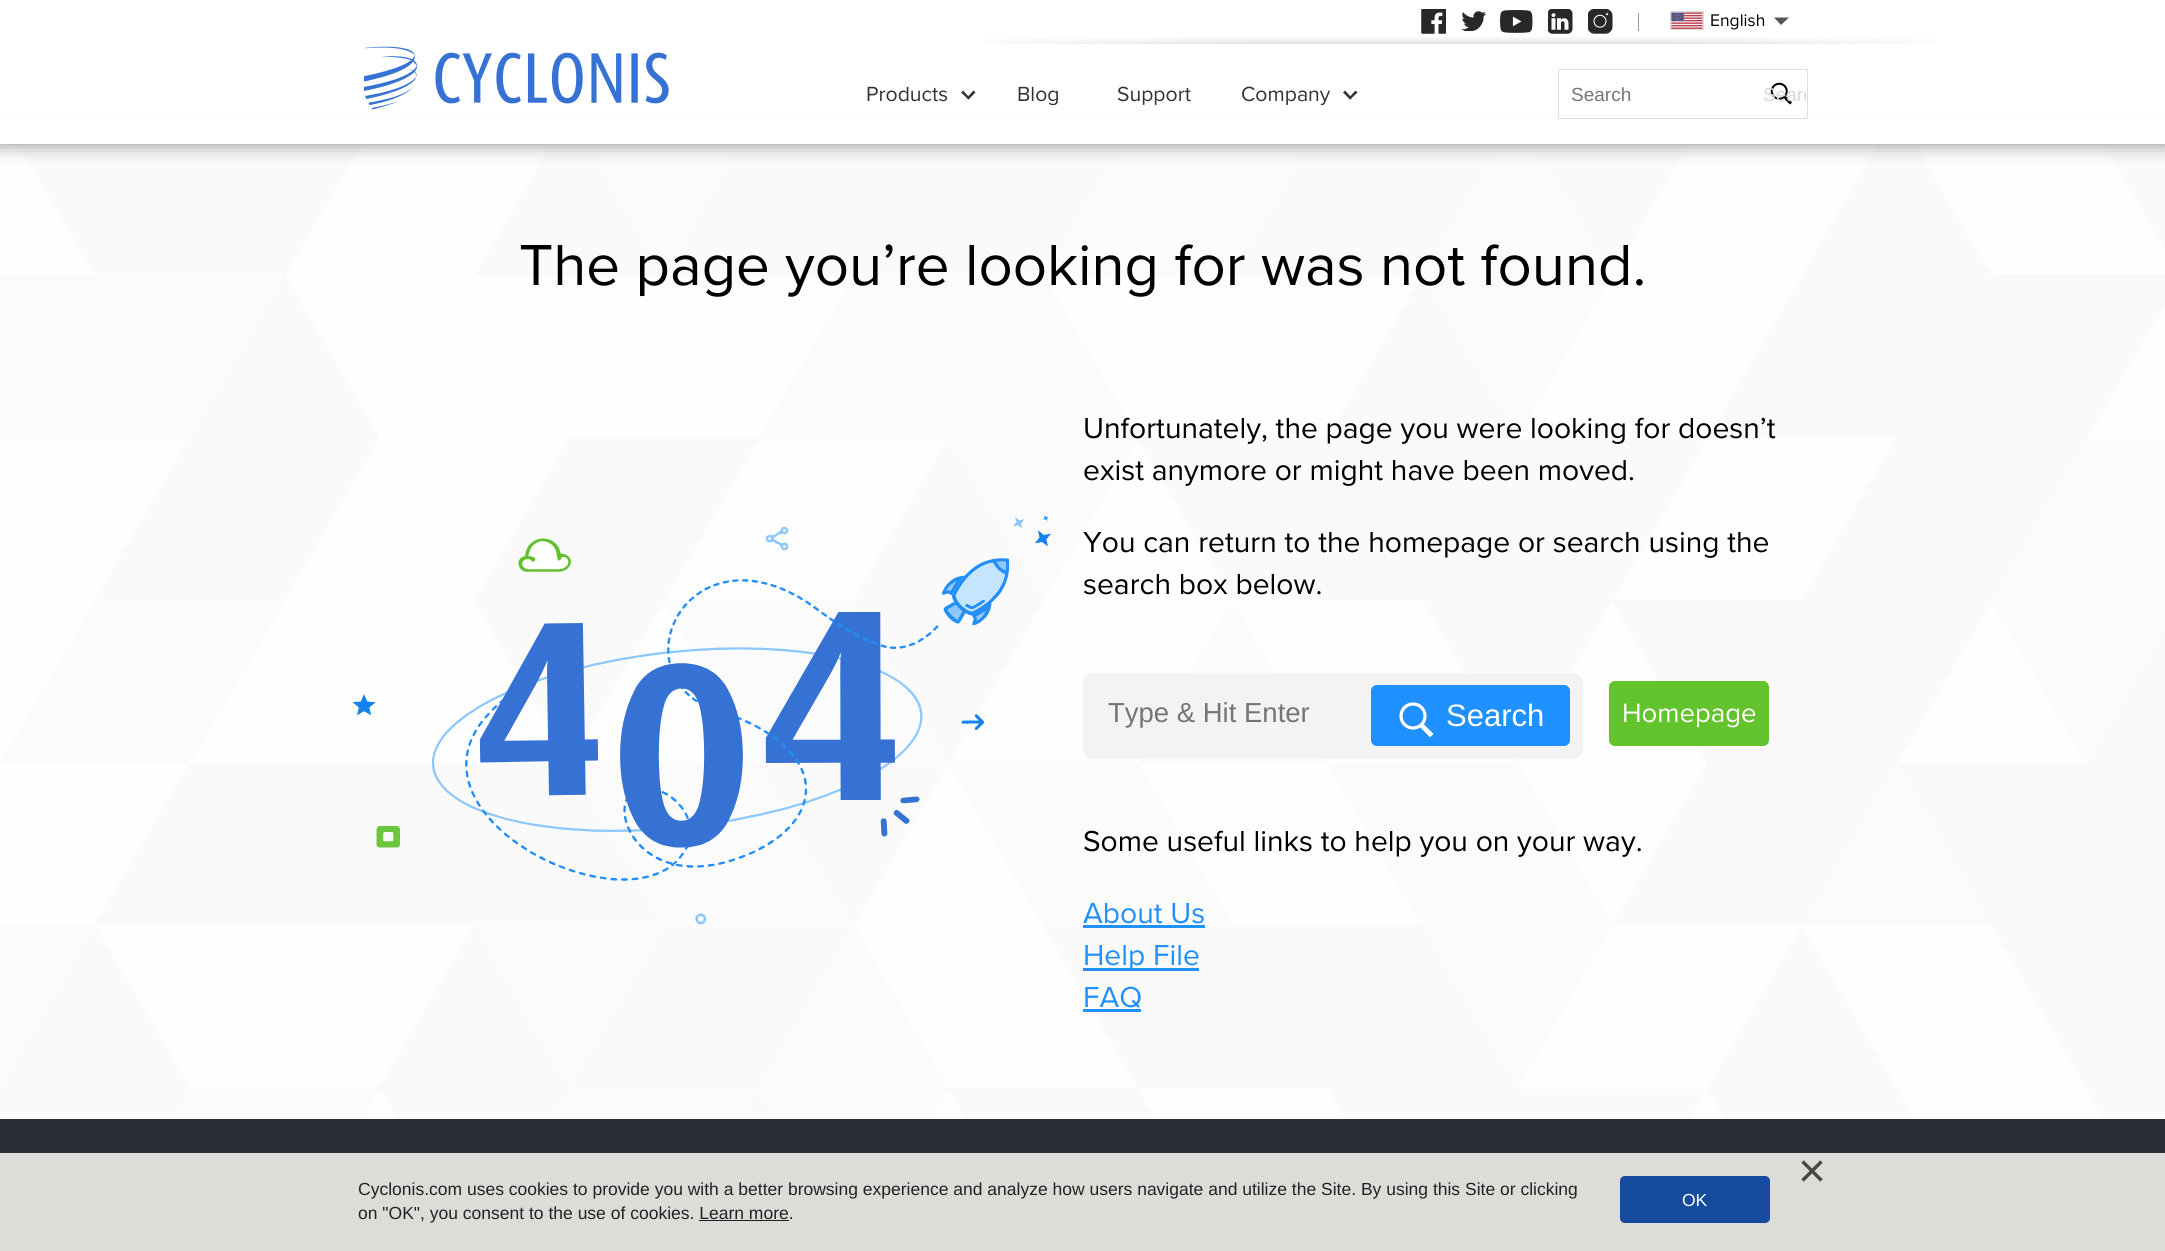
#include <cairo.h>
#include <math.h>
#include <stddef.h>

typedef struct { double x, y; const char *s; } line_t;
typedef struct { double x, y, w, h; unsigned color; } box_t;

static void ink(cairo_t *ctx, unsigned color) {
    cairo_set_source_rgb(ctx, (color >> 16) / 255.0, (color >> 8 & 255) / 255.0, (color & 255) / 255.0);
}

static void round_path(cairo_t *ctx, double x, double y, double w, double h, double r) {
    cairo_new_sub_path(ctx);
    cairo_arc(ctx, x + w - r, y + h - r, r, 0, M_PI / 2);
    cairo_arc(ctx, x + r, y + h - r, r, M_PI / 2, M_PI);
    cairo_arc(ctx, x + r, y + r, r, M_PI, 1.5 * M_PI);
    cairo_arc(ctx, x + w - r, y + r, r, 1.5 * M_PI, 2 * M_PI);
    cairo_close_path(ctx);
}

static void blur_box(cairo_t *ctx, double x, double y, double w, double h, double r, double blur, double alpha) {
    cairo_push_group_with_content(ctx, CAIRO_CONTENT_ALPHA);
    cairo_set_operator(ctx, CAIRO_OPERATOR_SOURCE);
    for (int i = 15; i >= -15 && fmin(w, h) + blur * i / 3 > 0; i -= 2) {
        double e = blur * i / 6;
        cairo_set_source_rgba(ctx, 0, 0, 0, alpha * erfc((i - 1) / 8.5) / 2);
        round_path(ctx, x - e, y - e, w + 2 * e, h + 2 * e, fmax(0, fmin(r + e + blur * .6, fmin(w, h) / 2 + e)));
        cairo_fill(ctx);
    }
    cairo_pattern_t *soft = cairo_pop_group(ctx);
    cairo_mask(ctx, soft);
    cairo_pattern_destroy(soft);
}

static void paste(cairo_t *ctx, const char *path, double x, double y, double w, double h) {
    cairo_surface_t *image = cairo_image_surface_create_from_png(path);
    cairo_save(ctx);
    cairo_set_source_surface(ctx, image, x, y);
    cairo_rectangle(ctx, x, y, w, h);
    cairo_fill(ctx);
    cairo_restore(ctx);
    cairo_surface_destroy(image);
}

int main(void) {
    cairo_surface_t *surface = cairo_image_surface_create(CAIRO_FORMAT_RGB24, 2165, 1251);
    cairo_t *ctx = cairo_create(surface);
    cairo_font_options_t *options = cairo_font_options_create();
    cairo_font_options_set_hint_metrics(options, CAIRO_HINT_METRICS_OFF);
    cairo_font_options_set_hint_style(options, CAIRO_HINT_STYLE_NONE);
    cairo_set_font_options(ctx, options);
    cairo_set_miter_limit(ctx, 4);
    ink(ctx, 0xFFFFFF);
    cairo_paint(ctx);
    paste(ctx, "media/10.png", 0, 144, 2165, 974);
    ink(ctx, 0x888888);
    blur_box(ctx, 0, 138, 2165, 6, 0, 9.5, 1);
    ink(ctx, 0xFFFFFF);
    cairo_rectangle(ctx, 0, 120, 2165, 24);
    cairo_fill(ctx);
    paste(ctx, "media/1.png", 984, 37, 950, 7);
    paste(ctx, "media/2.png", 1421, 9, 25, 25);
    paste(ctx, "media/3.png", 1461, 11, 25, 20);
    paste(ctx, "media/4.png", 1500, 10, 33, 23);
    paste(ctx, "media/5.png", 1548, 9, 25, 25);
    paste(ctx, "media/6.png", 1588, 9, 25, 25);
    ink(ctx, 0x999999);
    cairo_rectangle(ctx, 1638, 13, 1, 18);
    cairo_fill(ctx);
    paste(ctx, "media/7.png", 1671, 12, 32, 17);
    cairo_rectangle(ctx, 1670.5, 11.5, 33, 18);
    ink(ctx, 0xD9D9D9);
    cairo_set_line_width(ctx, 1);
    cairo_stroke(ctx);
    cairo_select_font_face(ctx, "Proxima Nova", CAIRO_FONT_SLANT_NORMAL, CAIRO_FONT_WEIGHT_NORMAL);
    cairo_set_font_size(ctx, 17.5);
    ink(ctx, 0x000000);
    cairo_move_to(ctx, 1710, 26);
    cairo_show_text(ctx, "English");
    ink(ctx, 0x555555);
    cairo_new_path(ctx);
    cairo_move_to(ctx, 1774, 17.5);
    cairo_line_to(ctx, 1789, 17.5);
    cairo_line_to(ctx, 1781, 25);
    cairo_close_path(ctx);
    cairo_fill(ctx);
    paste(ctx, "media/8.png", 364, 46, 305, 64);
    cairo_set_font_size(ctx, 21.25);
    ink(ctx, 0x333333);
    cairo_move_to(ctx, 866, 101);
    cairo_show_text(ctx, "Products");
    cairo_new_path(ctx);
    cairo_move_to(ctx, 966.5, 98);
    cairo_line_to(ctx, 973.5, 90.5);
    cairo_line_to(ctx, 975.5, 92.5);
    cairo_line_to(ctx, 968.5, 99.5);
    cairo_close_path(ctx);
    cairo_fill(ctx);
    cairo_new_path(ctx);
    cairo_move_to(ctx, 961, 92.5);
    cairo_line_to(ctx, 963, 90.5);
    cairo_line_to(ctx, 970, 98);
    cairo_line_to(ctx, 968.5, 99.5);
    cairo_close_path(ctx);
    cairo_fill(ctx);
    {
        static const line_t items[] = {
            {1017, 101, "Blog"},
            {1117, 101, "Support"},
            {1241, 101, "Company"},
        };
        for (size_t i = 0; i < sizeof items / sizeof *items; i++) {
            cairo_move_to(ctx, items[i].x, items[i].y);
            cairo_show_text(ctx, items[i].s);
        }
    }
    cairo_new_path(ctx);
    cairo_move_to(ctx, 1348.5, 98);
    cairo_line_to(ctx, 1355.5, 90.5);
    cairo_line_to(ctx, 1357.5, 92.5);
    cairo_line_to(ctx, 1350, 99.5);
    cairo_close_path(ctx);
    cairo_fill(ctx);
    cairo_new_path(ctx);
    cairo_move_to(ctx, 1343, 92.5);
    cairo_line_to(ctx, 1345, 90.5);
    cairo_line_to(ctx, 1352, 98);
    cairo_line_to(ctx, 1350, 99.5);
    cairo_close_path(ctx);
    cairo_fill(ctx);
    cairo_rectangle(ctx, 1558.5, 69.5, 249, 49);
    ink(ctx, 0xDFDFDF);
    cairo_stroke(ctx);
    cairo_select_font_face(ctx, "Liberation Sans", CAIRO_FONT_SLANT_NORMAL, CAIRO_FONT_WEIGHT_NORMAL);
    cairo_set_font_size(ctx, 19);
    ink(ctx, 0x757575);
    cairo_move_to(ctx, 1571, 101);
    cairo_show_text(ctx, "Search");
    paste(ctx, "media/9.png", 1770, 82, 22, 23);
    cairo_save(ctx);
    cairo_rectangle(ctx, 1559, 70, 247, 48);
    cairo_clip(ctx);
    ink(ctx, 0xD8D8D8);
    cairo_move_to(ctx, 1763, 101);
    cairo_show_text(ctx, "Searc");
    cairo_restore(ctx);
    cairo_select_font_face(ctx, "Proxima Nova", CAIRO_FONT_SLANT_NORMAL, CAIRO_FONT_WEIGHT_NORMAL);
    cairo_set_font_size(ctx, 60);
    ink(ctx, 0x000000);
    cairo_move_to(ctx, 519, 285);
    cairo_show_text(ctx, "The page you’re looking for was not found.");
    paste(ctx, "media/11.png", 352, 515, 699, 410);
    cairo_set_font_size(ctx, 30);
    {
        static const line_t items[] = {
            {1083, 438, "Unfortunately, the page you were looking for doesn’t"},
            {1083, 480, "exist anymore or might have been moved."},
            {1083, 552, "You can return to the homepage or search using the"},
            {1083, 594, "search box below."},
        };
        for (size_t i = 0; i < sizeof items / sizeof *items; i++) {
            cairo_move_to(ctx, items[i].x, items[i].y);
            cairo_show_text(ctx, items[i].s);
        }
    }
    ink(ctx, 0xF3F3F3);
    round_path(ctx, 1083, 673, 500, 86, 10);
    cairo_fill(ctx);
    cairo_select_font_face(ctx, "Liberation Sans", CAIRO_FONT_SLANT_NORMAL, CAIRO_FONT_WEIGHT_NORMAL);
    cairo_set_font_size(ctx, 27.5);
    ink(ctx, 0x757575);
    cairo_move_to(ctx, 1108, 722);
    cairo_show_text(ctx, "Type & Hit Enter");
    ink(ctx, 0x1E90FF);
    round_path(ctx, 1371, 685, 199, 61, 6);
    cairo_fill(ctx);
    paste(ctx, "media/12.png", 1399, 702, 35, 36);
    cairo_set_font_size(ctx, 31);
    ink(ctx, 0xFFFFFF);
    cairo_move_to(ctx, 1446, 726);
    cairo_show_text(ctx, "Search");
    ink(ctx, 0x62C32D);
    round_path(ctx, 1609, 681, 160, 65, 6);
    cairo_fill(ctx);
    cairo_select_font_face(ctx, "Proxima Nova", CAIRO_FONT_SLANT_NORMAL, CAIRO_FONT_WEIGHT_NORMAL);
    cairo_set_font_size(ctx, 27.5);
    ink(ctx, 0xFFFFFF);
    cairo_move_to(ctx, 1622, 722);
    cairo_show_text(ctx, "Homepage");
    cairo_set_font_size(ctx, 30);
    ink(ctx, 0x000000);
    cairo_move_to(ctx, 1083, 851);
    cairo_show_text(ctx, "Some useful links to help you on your way.");
    ink(ctx, 0x2090FA);
    cairo_move_to(ctx, 1083, 923);
    cairo_show_text(ctx, "About Us");
    cairo_rectangle(ctx, 1083, 925, 122, 3);
    cairo_fill(ctx);
    cairo_rectangle(ctx, 1083, 968, 116, 3);
    cairo_fill(ctx);
    cairo_move_to(ctx, 1083, 965);
    cairo_show_text(ctx, "Help File");
    cairo_move_to(ctx, 1083, 1007);
    cairo_show_text(ctx, "FAQ");
    {
        static const box_t items[] = {
            {1083, 1009, 58, 3, 0x2090FA},
            {0, 1119, 2165, 34, 0x2A2F37},
            {0, 1153, 2165, 98, 0xDCDCD9},
        };
        for (size_t i = 0; i < sizeof items / sizeof *items; i++) {
            ink(ctx, items[i].color);
            cairo_rectangle(ctx, items[i].x, items[i].y, items[i].w, items[i].h);
            cairo_fill(ctx);
        }
    }
    cairo_select_font_face(ctx, "Liberation Sans", CAIRO_FONT_SLANT_NORMAL, CAIRO_FONT_WEIGHT_NORMAL);
    cairo_set_font_size(ctx, 48);
    ink(ctx, 0x474747);
    cairo_move_to(ctx, 1798, 1187);
    cairo_show_text(ctx, "×");
    cairo_set_font_size(ctx, 17.5);
    ink(ctx, 0x222222);
    cairo_move_to(ctx, 358, 1195);
    cairo_show_text(ctx, "Cyclonis.com uses cookies to provide you with a better browsing experience and analyze how users navigate and utilize the Site. By using this Site or clicking");
    ink(ctx, 0x164A9F);
    round_path(ctx, 1620, 1176, 150, 47, 5);
    cairo_fill(ctx);
    ink(ctx, 0xFFFFFF);
    cairo_move_to(ctx, 1682, 1206);
    cairo_show_text(ctx, "OK");
    ink(ctx, 0x222222);
    cairo_move_to(ctx, 358, 1219);
    cairo_show_text(ctx, "on \"OK\", you consent to the use of cookies. Learn more.");
    cairo_rectangle(ctx, 699, 1220, 90, 1);
    cairo_fill(ctx);
    cairo_surface_write_to_png(surface, "image.png");
    cairo_font_options_destroy(options);
    cairo_destroy(ctx);
    cairo_surface_destroy(surface);
    return 0;
}
